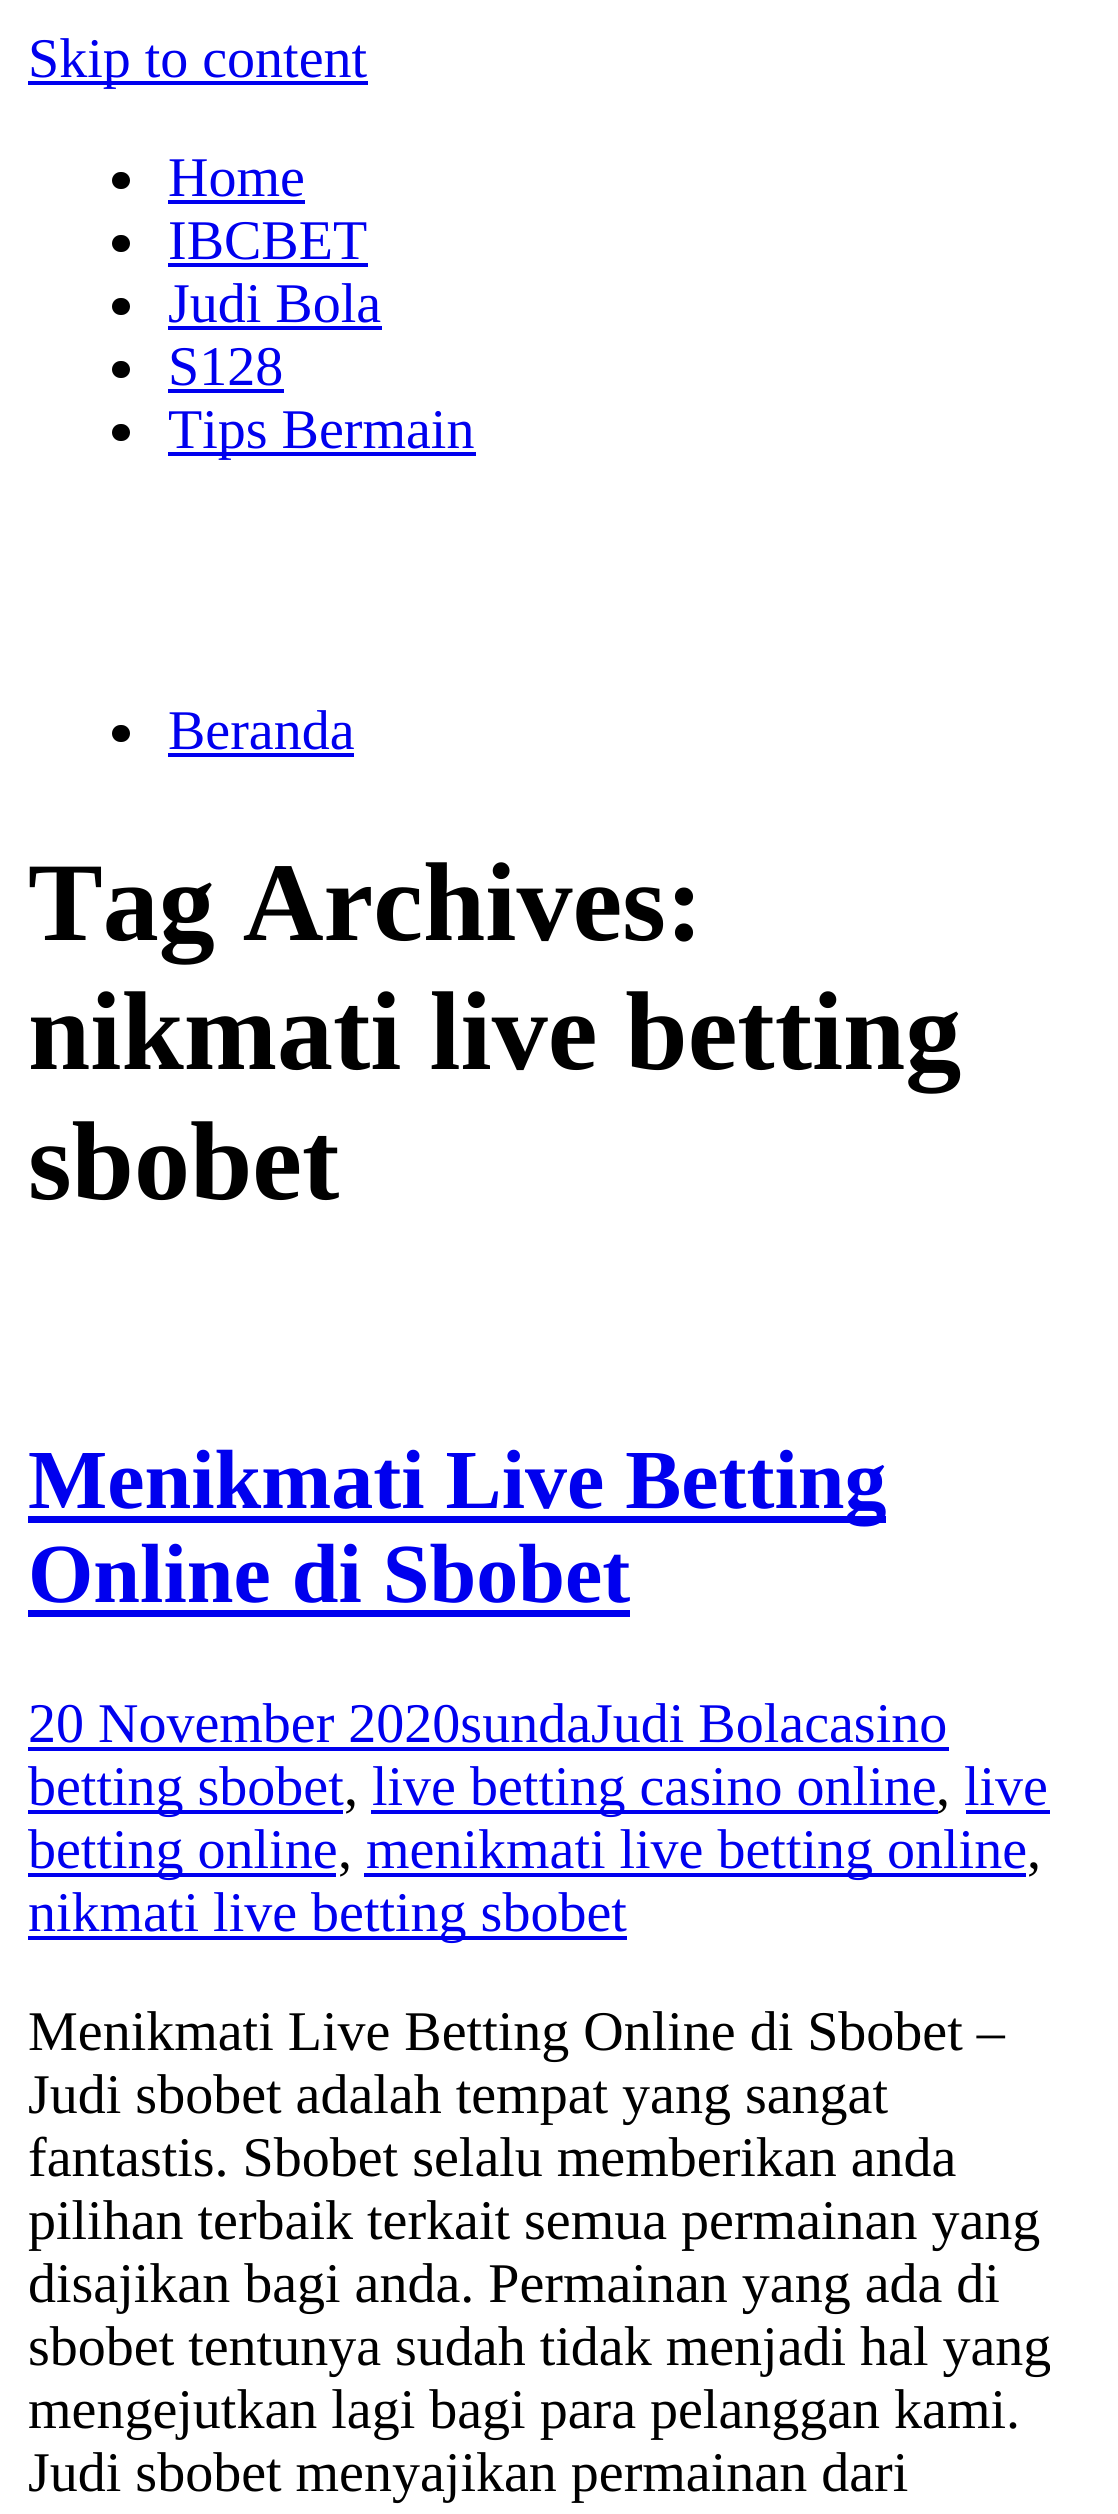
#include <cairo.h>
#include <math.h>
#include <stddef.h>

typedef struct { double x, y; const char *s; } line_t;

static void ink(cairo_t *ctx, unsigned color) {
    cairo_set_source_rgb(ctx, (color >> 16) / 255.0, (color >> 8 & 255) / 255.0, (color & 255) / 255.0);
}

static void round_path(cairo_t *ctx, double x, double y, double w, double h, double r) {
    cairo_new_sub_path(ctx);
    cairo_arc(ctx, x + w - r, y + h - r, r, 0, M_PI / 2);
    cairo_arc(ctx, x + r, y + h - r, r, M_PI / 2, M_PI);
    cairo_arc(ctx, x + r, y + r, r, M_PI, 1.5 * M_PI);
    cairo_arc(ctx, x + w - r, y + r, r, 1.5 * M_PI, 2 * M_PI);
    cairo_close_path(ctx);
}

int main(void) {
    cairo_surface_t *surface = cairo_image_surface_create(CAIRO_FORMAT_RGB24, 1118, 2514);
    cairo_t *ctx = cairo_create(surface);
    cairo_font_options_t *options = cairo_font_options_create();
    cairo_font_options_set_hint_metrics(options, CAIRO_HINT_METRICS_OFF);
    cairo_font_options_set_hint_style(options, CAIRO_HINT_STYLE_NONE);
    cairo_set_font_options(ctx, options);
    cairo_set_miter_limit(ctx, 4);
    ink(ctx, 0xFFFFFF);
    cairo_paint(ctx);
    ink(ctx, 0x0000EE);
    cairo_rectangle(ctx, 28, 81, 340, 4);
    cairo_fill(ctx);
    cairo_select_font_face(ctx, "Liberation Serif", CAIRO_FONT_SLANT_NORMAL, CAIRO_FONT_WEIGHT_NORMAL);
    cairo_set_font_size(ctx, 56);
    cairo_move_to(ctx, 28, 77);
    cairo_show_text(ctx, "Skip to content");
    ink(ctx, 0x000000);
    round_path(ctx, 112, 172, 18, 17, 8.5);
    cairo_fill(ctx);
    ink(ctx, 0x0000EE);
    cairo_move_to(ctx, 168, 196);
    cairo_show_text(ctx, "Home");
    cairo_rectangle(ctx, 168, 200, 137, 4);
    cairo_fill(ctx);
    ink(ctx, 0x000000);
    round_path(ctx, 112, 235, 18, 17, 8.5);
    cairo_fill(ctx);
    ink(ctx, 0x0000EE);
    cairo_move_to(ctx, 168, 259);
    cairo_show_text(ctx, "IBCBET");
    cairo_rectangle(ctx, 168, 263, 200, 4);
    cairo_fill(ctx);
    ink(ctx, 0x000000);
    round_path(ctx, 112, 298, 18, 17, 8.5);
    cairo_fill(ctx);
    ink(ctx, 0x0000EE);
    cairo_move_to(ctx, 168, 322);
    cairo_show_text(ctx, "Judi Bola");
    cairo_rectangle(ctx, 168, 326, 214, 4);
    cairo_fill(ctx);
    ink(ctx, 0x000000);
    round_path(ctx, 112, 361, 18, 17, 8.5);
    cairo_fill(ctx);
    ink(ctx, 0x0000EE);
    cairo_move_to(ctx, 168, 385);
    cairo_show_text(ctx, "S128");
    cairo_rectangle(ctx, 168, 389, 116, 4);
    cairo_fill(ctx);
    ink(ctx, 0x000000);
    round_path(ctx, 112, 424, 18, 17, 8.5);
    cairo_fill(ctx);
    ink(ctx, 0x0000EE);
    cairo_rectangle(ctx, 168, 452, 308, 4);
    cairo_fill(ctx);
    cairo_move_to(ctx, 168, 448);
    cairo_show_text(ctx, "Tips Bermain");
    ink(ctx, 0x000000);
    round_path(ctx, 112, 725, 18, 17, 8.5);
    cairo_fill(ctx);
    ink(ctx, 0x0000EE);
    cairo_move_to(ctx, 168, 749);
    cairo_show_text(ctx, "Beranda");
    cairo_rectangle(ctx, 168, 753, 186, 4);
    cairo_fill(ctx);
    cairo_select_font_face(ctx, "Liberation Serif", CAIRO_FONT_SLANT_NORMAL, CAIRO_FONT_WEIGHT_BOLD);
    cairo_set_font_size(ctx, 112);
    ink(ctx, 0x000000);
    {
        static const line_t items[] = {
            {28, 940, "Tag Archives:"},
            {28, 1069, "nikmati live betting"},
            {28, 1199, "sbobet"},
        };
        for (size_t i = 0; i < sizeof items / sizeof *items; i++) {
            cairo_move_to(ctx, items[i].x, items[i].y);
            cairo_show_text(ctx, items[i].s);
        }
    }
    ink(ctx, 0x0000EE);
    cairo_rectangle(ctx, 28, 1516, 858, 7);
    cairo_fill(ctx);
    cairo_set_font_size(ctx, 84);
    cairo_move_to(ctx, 28, 1508);
    cairo_show_text(ctx, "Menikmati Live Betting");
    cairo_move_to(ctx, 28, 1602);
    cairo_show_text(ctx, "Online di Sbobet");
    cairo_rectangle(ctx, 28, 1610, 602, 7);
    cairo_fill(ctx);
    cairo_select_font_face(ctx, "Liberation Serif", CAIRO_FONT_SLANT_NORMAL, CAIRO_FONT_WEIGHT_NORMAL);
    cairo_set_font_size(ctx, 56);
    cairo_move_to(ctx, 28, 1742);
    cairo_show_text(ctx, "20 November 2020sundaJudi Bolacasino");
    cairo_rectangle(ctx, 28, 1747, 921, 4);
    cairo_fill(ctx);
    cairo_rectangle(ctx, 28, 1810, 315, 4);
    cairo_fill(ctx);
    cairo_move_to(ctx, 28, 1805);
    cairo_show_text(ctx, "betting sbobet");
    ink(ctx, 0x000000);
    cairo_move_to(ctx, 344, 1805);
    cairo_show_text(ctx, ",");
    ink(ctx, 0x0000EE);
    cairo_rectangle(ctx, 371, 1810, 567, 4);
    cairo_fill(ctx);
    cairo_move_to(ctx, 372, 1805);
    cairo_show_text(ctx, "live betting casino online");
    ink(ctx, 0x000000);
    cairo_move_to(ctx, 936, 1805);
    cairo_show_text(ctx, ",");
    ink(ctx, 0x0000EE);
    cairo_rectangle(ctx, 966, 1810, 84, 4);
    cairo_fill(ctx);
    cairo_move_to(ctx, 964, 1805);
    cairo_show_text(ctx, "live");
    cairo_rectangle(ctx, 28, 1873, 308, 4);
    cairo_fill(ctx);
    cairo_move_to(ctx, 28, 1868);
    cairo_show_text(ctx, "betting online");
    ink(ctx, 0x000000);
    cairo_move_to(ctx, 338, 1868);
    cairo_show_text(ctx, ",");
    ink(ctx, 0x0000EE);
    cairo_rectangle(ctx, 364, 1873, 662, 4);
    cairo_fill(ctx);
    cairo_move_to(ctx, 366, 1868);
    cairo_show_text(ctx, "menikmati live betting online");
    ink(ctx, 0x000000);
    cairo_move_to(ctx, 1027, 1868);
    cairo_show_text(ctx, ",");
    ink(ctx, 0x0000EE);
    cairo_rectangle(ctx, 28, 1936, 599, 4);
    cairo_fill(ctx);
    cairo_move_to(ctx, 28, 1931);
    cairo_show_text(ctx, "nikmati live betting sbobet");
    ink(ctx, 0x000000);
    {
        static const line_t items[] = {
            {28, 2050, "Menikmati Live Betting Online di Sbobet –"},
            {28, 2113, "Judi sbobet adalah tempat yang sangat"},
            {28, 2176, "fantastis. Sbobet selalu memberikan anda"},
            {28, 2239, "pilihan terbaik terkait semua permainan yang"},
            {28, 2302, "disajikan bagi anda. Permainan yang ada di"},
            {28, 2365, "sbobet tentunya sudah tidak menjadi hal yang"},
            {28, 2428, "mengejutkan lagi bagi para pelanggan kami."},
            {28, 2491, "Judi sbobet menyajikan permainan dari"},
        };
        for (size_t i = 0; i < sizeof items / sizeof *items; i++) {
            cairo_move_to(ctx, items[i].x, items[i].y);
            cairo_show_text(ctx, items[i].s);
        }
    }
    cairo_surface_write_to_png(surface, "image.png");
    cairo_font_options_destroy(options);
    cairo_destroy(ctx);
    cairo_surface_destroy(surface);
    return 0;
}
